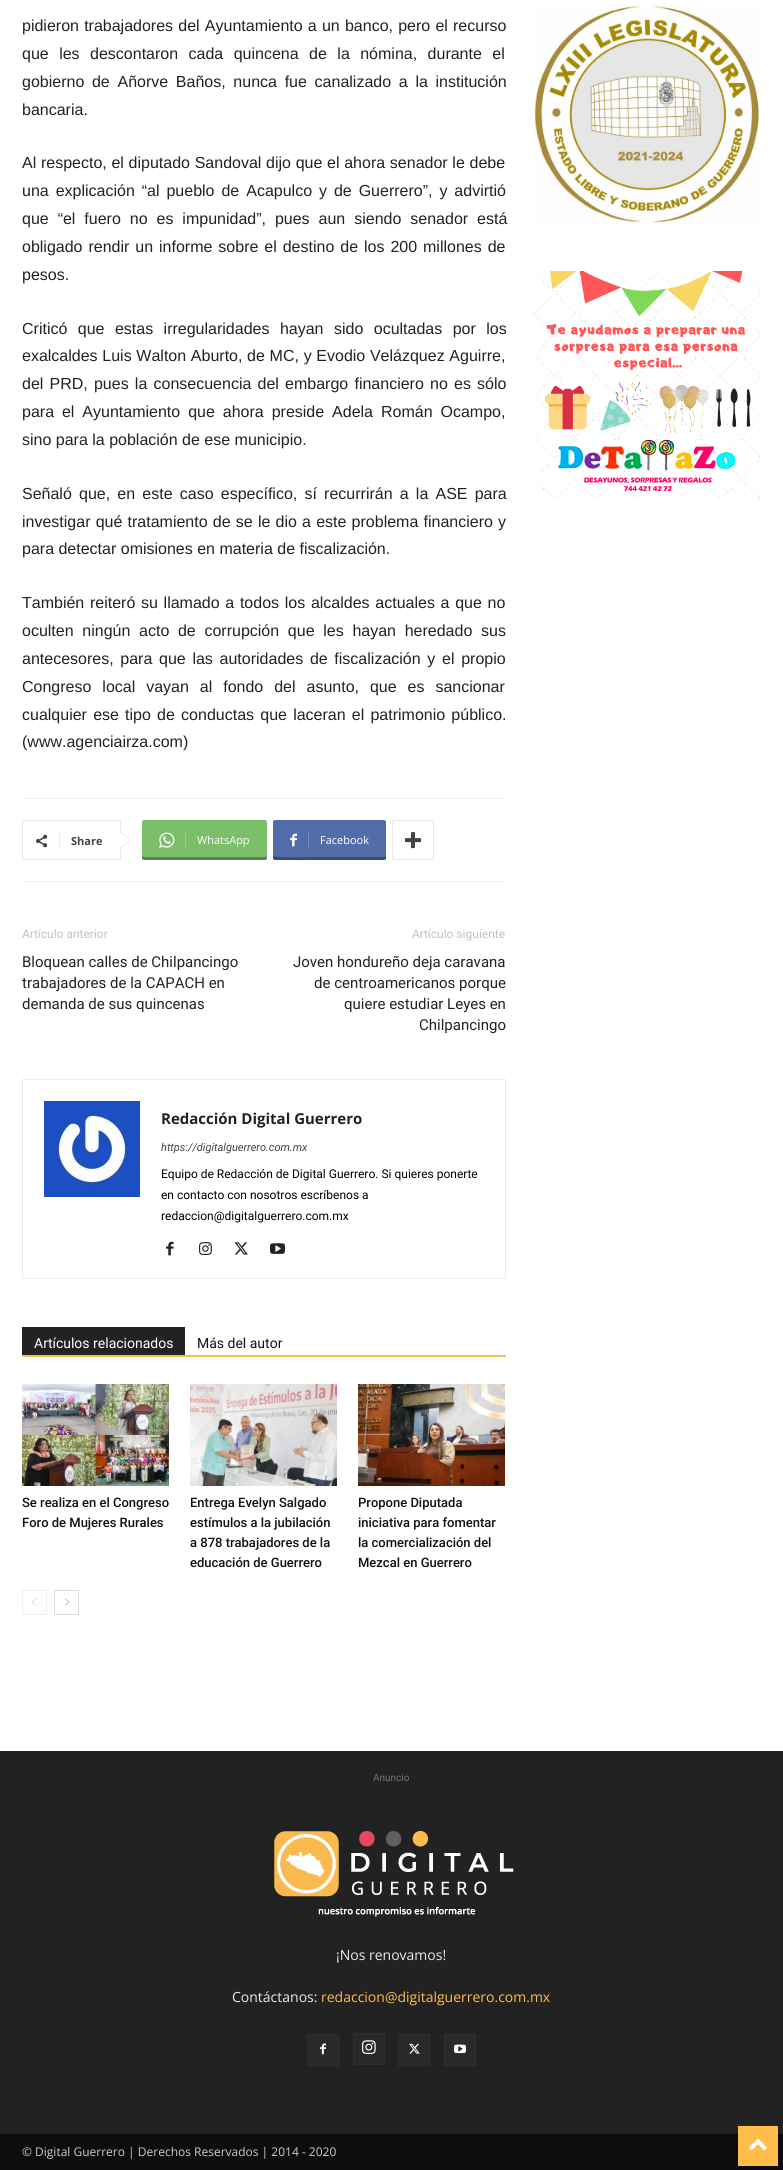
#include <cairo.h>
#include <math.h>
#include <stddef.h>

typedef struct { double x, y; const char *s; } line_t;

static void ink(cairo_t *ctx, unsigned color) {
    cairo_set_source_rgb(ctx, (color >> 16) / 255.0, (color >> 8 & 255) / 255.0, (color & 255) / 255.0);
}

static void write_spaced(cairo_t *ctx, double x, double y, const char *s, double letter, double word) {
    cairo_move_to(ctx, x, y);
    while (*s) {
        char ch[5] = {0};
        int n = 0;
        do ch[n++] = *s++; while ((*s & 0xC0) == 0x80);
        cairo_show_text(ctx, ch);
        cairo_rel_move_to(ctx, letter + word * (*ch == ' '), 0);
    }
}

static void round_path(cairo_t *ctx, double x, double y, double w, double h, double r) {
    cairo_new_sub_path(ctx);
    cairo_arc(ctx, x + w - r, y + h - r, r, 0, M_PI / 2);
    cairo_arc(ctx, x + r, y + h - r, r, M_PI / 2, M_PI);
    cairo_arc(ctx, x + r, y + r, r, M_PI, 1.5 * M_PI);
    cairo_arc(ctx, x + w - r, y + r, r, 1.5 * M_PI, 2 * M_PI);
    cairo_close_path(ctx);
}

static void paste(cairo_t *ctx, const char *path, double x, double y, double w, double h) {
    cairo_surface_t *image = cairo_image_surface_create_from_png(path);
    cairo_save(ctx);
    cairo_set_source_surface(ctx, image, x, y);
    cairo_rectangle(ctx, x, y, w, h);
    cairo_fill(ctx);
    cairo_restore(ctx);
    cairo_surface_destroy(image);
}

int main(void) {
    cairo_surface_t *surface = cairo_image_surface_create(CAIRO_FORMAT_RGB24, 783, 2170);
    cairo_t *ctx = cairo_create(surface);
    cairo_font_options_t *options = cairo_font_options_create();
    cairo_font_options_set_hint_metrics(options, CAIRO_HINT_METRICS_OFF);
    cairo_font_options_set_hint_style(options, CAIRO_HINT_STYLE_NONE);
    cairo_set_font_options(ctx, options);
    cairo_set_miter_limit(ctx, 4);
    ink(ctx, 0xFFFFFF);
    cairo_paint(ctx);
    cairo_select_font_face(ctx, "Liberation Sans", CAIRO_FONT_SLANT_NORMAL, CAIRO_FONT_WEIGHT_NORMAL);
    cairo_set_font_size(ctx, 16);
    ink(ctx, 0x222222);
    write_spaced(ctx, 22, 31, "pidieron trabajadores del Ayuntamiento a un banco, pero el recurso", 0, 0.75);
    write_spaced(ctx, 22, 59, "que les descontaron cada quincena de la nómina, durante el", 0, 6);
    write_spaced(ctx, 22, 87, "gobierno de Añorve Baños, nunca fue canalizado a la institución", 0, 3.25);
    cairo_move_to(ctx, 22, 115);
    cairo_show_text(ctx, "bancaria.");
    write_spaced(ctx, 22, 168, "Al respecto, el diputado Sandoval dijo que el ahora senador le debe", 0, 0.25);
    write_spaced(ctx, 22, 196, "una explicación “al pueblo de Acapulco y de Guerrero”, y advirtió", 0, 2.5);
    write_spaced(ctx, 22, 224, "que “el fuero no es impunidad”, pues aun siendo senador está", 0, 4.5);
    write_spaced(ctx, 22, 252, "obligado rendir un informe sobre el destino de los 200 millones de", 0, 1.5);
    cairo_move_to(ctx, 22, 280);
    cairo_show_text(ctx, "pesos.");
    write_spaced(ctx, 22, 334, "Criticó que estas irregularidades hayan sido ocultadas por los", 0, 6);
    write_spaced(ctx, 22, 361, "exalcaldes Luis Walton Aburto, de MC, y Evodio Velázquez Aguirre,", 0, 0.25);
    write_spaced(ctx, 22, 389, "del PRD, pues la consecuencia del embargo financiero no es sólo", 0, 1.75);
    write_spaced(ctx, 22, 417, "para el Ayuntamiento que ahora preside Adela Román Ocampo,", 0, 3.5);
    cairo_move_to(ctx, 22, 445);
    cairo_show_text(ctx, "sino para la población de ese municipio.");
    write_spaced(ctx, 22, 499, "Señaló que, en este caso específico, sí recurrirán a la ASE para", 0, 2.75);
    write_spaced(ctx, 22, 527, "investigar qué tratamiento de se le dio a este problema financiero y", 0, 0.75);
    cairo_move_to(ctx, 22, 554);
    cairo_show_text(ctx, "para detectar omisiones en materia de fiscalización.");
    write_spaced(ctx, 22, 608, "También reiteró su llamado a todos los alcaldes actuales a que no", 0, 1.25);
    write_spaced(ctx, 22, 636, "oculten ningún acto de corrupción que les hayan heredado sus", 0, 4.25);
    write_spaced(ctx, 22, 664, "antecesores, para que las autoridades de fiscalización y el propio", 0, 2.25);
    write_spaced(ctx, 22, 692, "Congreso local vayan al fondo del asunto, que es sancionar", 0, 6.5);
    write_spaced(ctx, 22, 720, "cualquier ese tipo de conductas que laceran el patrimonio público.", 0, 1.75);
    cairo_move_to(ctx, 22, 747);
    cairo_show_text(ctx, "(www.agenciairza.com)");
    ink(ctx, 0xEDEDED);
    cairo_rectangle(ctx, 22, 798, 484, 1);
    cairo_fill(ctx);
    cairo_rectangle(ctx, 22, 881, 484, 1);
    cairo_fill(ctx);
    round_path(ctx, 22.5, 820.5, 98, 39, 1.5);
    ink(ctx, 0xE9E9E9);
    cairo_set_line_width(ctx, 1);
    cairo_stroke(ctx);
    cairo_new_path(ctx);
    cairo_move_to(ctx, 120, 849);
    cairo_line_to(ctx, 120, 831);
    cairo_line_to(ctx, 131, 840);
    cairo_close_path(ctx);
    cairo_fill(ctx);
    paste(ctx, "media/1.png", 36, 834, 12, 14);
    ink(ctx, 0xEBEBEB);
    cairo_rectangle(ctx, 59, 833, 1, 16);
    cairo_fill(ctx);
    cairo_select_font_face(ctx, "Open Sans", CAIRO_FONT_SLANT_NORMAL, CAIRO_FONT_WEIGHT_BOLD);
    cairo_set_font_size(ctx, 11);
    ink(ctx, 0x444444);
    cairo_move_to(ctx, 71, 845);
    cairo_show_text(ctx, "Share");
    ink(ctx, 0xFFFFFF);
    cairo_new_path(ctx);
    cairo_move_to(ctx, 120, 848);
    cairo_line_to(ctx, 120, 832);
    cairo_line_to(ctx, 130, 840);
    cairo_close_path(ctx);
    cairo_fill(ctx);
    ink(ctx, 0x7BBF6A);
    cairo_new_path(ctx);
    cairo_move_to(ctx, 185, 820);
    cairo_line_to(ctx, 265, 820);
    cairo_curve_to(ctx, 266, 820, 267, 821, 267, 822);
    cairo_line_to(ctx, 267, 858);
    cairo_curve_to(ctx, 267, 859, 266, 860, 265, 860);
    cairo_line_to(ctx, 185, 860);
    cairo_close_path(ctx);
    cairo_fill(ctx);
    cairo_set_source_rgba(ctx, 0, 0, 0, 0.31);
    cairo_new_path(ctx);
    cairo_move_to(ctx, 185, 857);
    cairo_line_to(ctx, 185, 860);
    cairo_line_to(ctx, 265, 860);
    cairo_curve_to(ctx, 266, 860, 267, 859, 267, 858);
    cairo_line_to(ctx, 267, 855);
    cairo_curve_to(ctx, 267, 856, 266, 857, 265, 857);
    cairo_close_path(ctx);
    cairo_fill(ctx);
    ink(ctx, 0x7BBF6A);
    cairo_new_path(ctx);
    cairo_move_to(ctx, 144, 820);
    cairo_line_to(ctx, 191, 820);
    cairo_line_to(ctx, 191, 860);
    cairo_line_to(ctx, 144, 860);
    cairo_curve_to(ctx, 143, 860, 142, 859, 142, 858);
    cairo_line_to(ctx, 142, 822);
    cairo_curve_to(ctx, 142, 821, 143, 820, 144, 820);
    cairo_close_path(ctx);
    cairo_fill(ctx);
    cairo_set_source_rgba(ctx, 0, 0, 0, 0.31);
    cairo_new_path(ctx);
    cairo_move_to(ctx, 142, 855);
    cairo_line_to(ctx, 142, 858);
    cairo_curve_to(ctx, 142, 859, 143, 860, 144, 860);
    cairo_line_to(ctx, 191, 860);
    cairo_line_to(ctx, 191, 857);
    cairo_line_to(ctx, 144, 857);
    cairo_curve_to(ctx, 143, 857, 142, 856, 142, 855);
    cairo_close_path(ctx);
    cairo_fill(ctx);
    paste(ctx, "media/2.png", 159, 832, 16, 16);
    ink(ctx, 0x95CC88);
    cairo_rectangle(ctx, 185, 832, 1, 16);
    cairo_fill(ctx);
    cairo_select_font_face(ctx, "Open Sans", CAIRO_FONT_SLANT_NORMAL, CAIRO_FONT_WEIGHT_NORMAL);
    ink(ctx, 0xFFFFFF);
    cairo_move_to(ctx, 197, 844);
    cairo_show_text(ctx, "WhatsApp");
    ink(ctx, 0x516EAB);
    cairo_new_path(ctx);
    cairo_move_to(ctx, 308, 820);
    cairo_line_to(ctx, 384, 820);
    cairo_curve_to(ctx, 385, 820, 386, 821, 386, 822);
    cairo_line_to(ctx, 386, 858);
    cairo_curve_to(ctx, 386, 859, 385, 860, 384, 860);
    cairo_line_to(ctx, 308, 860);
    cairo_close_path(ctx);
    cairo_fill(ctx);
    cairo_set_source_rgba(ctx, 0, 0, 0, 0.31);
    cairo_new_path(ctx);
    cairo_move_to(ctx, 308, 857);
    cairo_line_to(ctx, 308, 860);
    cairo_line_to(ctx, 384, 860);
    cairo_curve_to(ctx, 385, 860, 386, 859, 386, 858);
    cairo_line_to(ctx, 386, 855);
    cairo_curve_to(ctx, 386, 856, 385, 857, 384, 857);
    cairo_close_path(ctx);
    cairo_fill(ctx);
    ink(ctx, 0x516EAB);
    cairo_new_path(ctx);
    cairo_move_to(ctx, 275, 820);
    cairo_line_to(ctx, 314, 820);
    cairo_line_to(ctx, 314, 860);
    cairo_line_to(ctx, 275, 860);
    cairo_curve_to(ctx, 274, 860, 273, 859, 273, 858);
    cairo_line_to(ctx, 273, 822);
    cairo_curve_to(ctx, 273, 821, 274, 820, 275, 820);
    cairo_close_path(ctx);
    cairo_fill(ctx);
    cairo_set_source_rgba(ctx, 0, 0, 0, 0.31);
    cairo_new_path(ctx);
    cairo_move_to(ctx, 273, 856);
    cairo_line_to(ctx, 273, 858);
    cairo_curve_to(ctx, 273, 859, 274, 860, 275, 860);
    cairo_line_to(ctx, 314, 860);
    cairo_line_to(ctx, 314, 857);
    cairo_curve_to(ctx, 309, 857, 275, 858, 273, 856);
    cairo_close_path(ctx);
    cairo_fill(ctx);
    paste(ctx, "media/3.png", 290, 833, 7, 14);
    ink(ctx, 0x748BBC);
    cairo_rectangle(ctx, 308, 832, 1, 16);
    cairo_fill(ctx);
    ink(ctx, 0xFFFFFF);
    cairo_move_to(ctx, 320, 844);
    cairo_show_text(ctx, "Facebook");
    round_path(ctx, 392.5, 820.5, 41, 39, 1.5);
    ink(ctx, 0xE9E9E9);
    cairo_stroke(ctx);
    paste(ctx, "media/4.png", 405, 832, 16, 17);
    cairo_select_font_face(ctx, "Roboto", CAIRO_FONT_SLANT_NORMAL, CAIRO_FONT_WEIGHT_NORMAL);
    cairo_set_font_size(ctx, 12);
    ink(ctx, 0xC1C1C1);
    cairo_move_to(ctx, 22, 938);
    cairo_show_text(ctx, "Artículo anterior");
    cairo_set_font_size(ctx, 15);
    ink(ctx, 0x222222);
    {
        static const line_t items[] = {
            {22, 967, "Bloquean calles de Chilpancingo"},
            {22, 988, "trabajadores de la CAPACH en"},
            {22, 1009, "demanda de sus quincenas"},
        };
        for (size_t i = 0; i < sizeof items / sizeof *items; i++) {
            cairo_move_to(ctx, items[i].x, items[i].y);
            cairo_show_text(ctx, items[i].s);
        }
    }
    cairo_set_font_size(ctx, 12);
    ink(ctx, 0xC1C1C1);
    cairo_move_to(ctx, 412, 938);
    cairo_show_text(ctx, "Artículo siguiente");
    cairo_set_font_size(ctx, 15);
    ink(ctx, 0x222222);
    {
        static const line_t items[] = {
            {293, 967, "Joven hondureño deja caravana"},
            {314, 988, "de centroamericanos porque"},
            {344, 1009, "quiere estudiar Leyes en"},
            {419, 1030, "Chilpancingo"},
        };
        for (size_t i = 0; i < sizeof items / sizeof *items; i++) {
            cairo_move_to(ctx, items[i].x, items[i].y);
            cairo_show_text(ctx, items[i].s);
        }
    }
    cairo_rectangle(ctx, 22.5, 1079.5, 483, 199);
    ink(ctx, 0xEDEDED);
    cairo_stroke(ctx);
    paste(ctx, "media/5.png", 44, 1101, 96, 96);
    cairo_select_font_face(ctx, "Open Sans", CAIRO_FONT_SLANT_NORMAL, CAIRO_FONT_WEIGHT_BOLD);
    ink(ctx, 0x222222);
    cairo_move_to(ctx, 161, 1124);
    cairo_show_text(ctx, "Redacción Digital Guerrero");
    cairo_select_font_face(ctx, "Roboto", CAIRO_FONT_SLANT_ITALIC, CAIRO_FONT_WEIGHT_NORMAL);
    cairo_set_font_size(ctx, 11);
    ink(ctx, 0x444444);
    cairo_move_to(ctx, 161, 1151);
    cairo_show_text(ctx, "https://digitalguerrero.com.mx");
    cairo_select_font_face(ctx, "Roboto", CAIRO_FONT_SLANT_NORMAL, CAIRO_FONT_WEIGHT_NORMAL);
    cairo_set_font_size(ctx, 12);
    ink(ctx, 0x000000);
    {
        static const line_t items[] = {
            {161, 1178, "Equipo de Redacción de Digital Guerrero. Si quieres ponerte"},
            {161, 1199, "en contacto con nosotros escríbenos a"},
            {161, 1220, "redaccion@digitalguerrero.com.mx"},
        };
        for (size_t i = 0; i < sizeof items / sizeof *items; i++) {
            cairo_move_to(ctx, items[i].x, items[i].y);
            cairo_show_text(ctx, items[i].s);
        }
    }
    paste(ctx, "media/6.png", 166, 1241, 8, 15);
    paste(ctx, "media/7.png", 199, 1242, 13, 13);
    paste(ctx, "media/8.png", 234, 1242, 14, 13);
    paste(ctx, "media/9.png", 270, 1243, 15, 11);
    ink(ctx, 0xFFBD4A);
    cairo_rectangle(ctx, 22, 1355, 484, 2);
    cairo_fill(ctx);
    ink(ctx, 0x222222);
    cairo_rectangle(ctx, 22, 1327, 163, 28);
    cairo_fill(ctx);
    cairo_set_font_size(ctx, 14);
    ink(ctx, 0xFFFFFF);
    cairo_move_to(ctx, 34, 1348);
    cairo_show_text(ctx, "Artículos relacionados");
    ink(ctx, 0x111111);
    cairo_move_to(ctx, 197, 1348);
    cairo_show_text(ctx, "Más del autor");
    paste(ctx, "media/10.png", 22, 1384, 147, 102);
    cairo_select_font_face(ctx, "Roboto Medium", CAIRO_FONT_SLANT_NORMAL, CAIRO_FONT_WEIGHT_NORMAL);
    cairo_set_font_size(ctx, 13);
    cairo_move_to(ctx, 22, 1507);
    cairo_show_text(ctx, "Se realiza en el Congreso");
    cairo_move_to(ctx, 22, 1527);
    cairo_show_text(ctx, "Foro de Mujeres Rurales");
    paste(ctx, "media/11.png", 190, 1384, 147, 102);
    {
        static const line_t items[] = {
            {190, 1507, "Entrega Evelyn Salgado"},
            {190, 1527, "estímulos a la jubilación"},
            {190, 1547, "a 878 trabajadores de la"},
            {190, 1567, "educación de Guerrero"},
        };
        for (size_t i = 0; i < sizeof items / sizeof *items; i++) {
            cairo_move_to(ctx, items[i].x, items[i].y);
            cairo_show_text(ctx, items[i].s);
        }
    }
    paste(ctx, "media/12.png", 358, 1384, 147, 102);
    {
        static const line_t items[] = {
            {358, 1507, "Propone Diputada"},
            {358, 1527, "iniciativa para fomentar"},
            {358, 1547, "la comercialización del"},
            {358, 1567, "Mezcal en Guerrero"},
        };
        for (size_t i = 0; i < sizeof items / sizeof *items; i++) {
            cairo_move_to(ctx, items[i].x, items[i].y);
            cairo_show_text(ctx, items[i].s);
        }
    }
    cairo_rectangle(ctx, 22.5, 1590.5, 24, 24);
    ink(ctx, 0xEEEEEE);
    cairo_stroke(ctx);
    paste(ctx, "media/13.png", 31, 1598, 5, 8);
    cairo_rectangle(ctx, 54.5, 1590.5, 24, 24);
    ink(ctx, 0xDCDCDC);
    cairo_stroke(ctx);
    paste(ctx, "media/14.png", 65, 1598, 5, 8);
    paste(ctx, "media/15.png", 534, 3, 227, 221);
    paste(ctx, "media/16.png", 534, 271, 228, 228);
    ink(ctx, 0x222222);
    cairo_rectangle(ctx, 0, 1751, 783, 383);
    cairo_fill(ctx);
    cairo_select_font_face(ctx, "Roboto", CAIRO_FONT_SLANT_NORMAL, CAIRO_FONT_WEIGHT_NORMAL);
    cairo_set_font_size(ctx, 10);
    ink(ctx, 0x767676);
    cairo_move_to(ctx, 373, 1781);
    cairo_show_text(ctx, "Anuncio");
    paste(ctx, "media/17.png", 274, 1831, 240, 86);
    cairo_select_font_face(ctx, "Open Sans", CAIRO_FONT_SLANT_NORMAL, CAIRO_FONT_WEIGHT_NORMAL);
    cairo_set_font_size(ctx, 14);
    ink(ctx, 0xEAEAEA);
    cairo_move_to(ctx, 336, 1960);
    cairo_show_text(ctx, "¡Nos renovamos!");
    cairo_move_to(ctx, 232, 2002);
    cairo_show_text(ctx, "Contáctanos:");
    ink(ctx, 0xFFBD4A);
    cairo_move_to(ctx, 321, 2002);
    cairo_show_text(ctx, "redaccion@digitalguerrero.com.mx");
    ink(ctx, 0x292929);
    cairo_rectangle(ctx, 308, 2035, 30, 30);
    cairo_fill(ctx);
    paste(ctx, "media/18.png", 320, 2043, 6, 12);
    cairo_rectangle(ctx, 307.5, 2034.5, 31, 31);
    ink(ctx, 0x2F2F2F);
    cairo_stroke(ctx);
    ink(ctx, 0x292929);
    cairo_rectangle(ctx, 354, 2034, 30, 30);
    cairo_fill(ctx);
    paste(ctx, "media/19.png", 362, 2040, 14, 14);
    cairo_rectangle(ctx, 353.5, 2033.5, 31, 31);
    ink(ctx, 0x2F2F2F);
    cairo_stroke(ctx);
    ink(ctx, 0x292929);
    cairo_rectangle(ctx, 399, 2035, 30, 30);
    cairo_fill(ctx);
    paste(ctx, "media/20.png", 409, 2043, 11, 11);
    cairo_rectangle(ctx, 398.5, 2034.5, 31, 31);
    ink(ctx, 0x2F2F2F);
    cairo_stroke(ctx);
    ink(ctx, 0x292929);
    cairo_rectangle(ctx, 445, 2035, 30, 30);
    cairo_fill(ctx);
    paste(ctx, "media/21.png", 454, 2044, 12, 10);
    cairo_rectangle(ctx, 444.5, 2034.5, 31, 31);
    ink(ctx, 0x2F2F2F);
    cairo_stroke(ctx);
    ink(ctx, 0x0D0D0D);
    cairo_rectangle(ctx, 0, 2134, 783, 36);
    cairo_fill(ctx);
    cairo_set_font_size(ctx, 12);
    ink(ctx, 0xCCCCCC);
    cairo_move_to(ctx, 22, 2156);
    cairo_show_text(ctx, "© Digital Guerrero | Derechos Reservados | 2014 - 2020");
    ink(ctx, 0xFFBD4A);
    cairo_rectangle(ctx, 738, 2126, 40, 40);
    cairo_fill(ctx);
    paste(ctx, "media/22.png", 749, 2138, 18, 13);
    cairo_surface_write_to_png(surface, "image.png");
    cairo_font_options_destroy(options);
    cairo_destroy(ctx);
    cairo_surface_destroy(surface);
    return 0;
}
